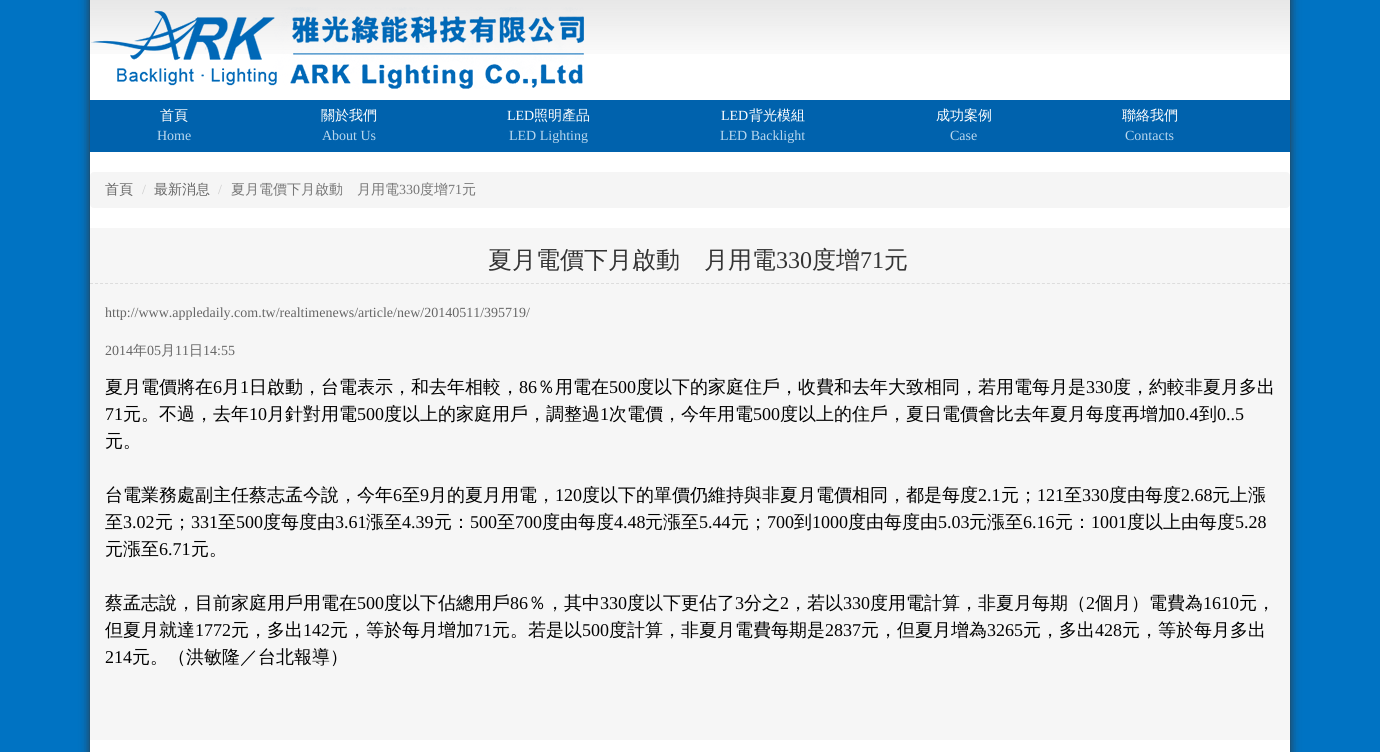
#include <cairo.h>
#include <math.h>
#include <stddef.h>


static void ink(cairo_t *ctx, unsigned color) {
    cairo_set_source_rgb(ctx, (color >> 16) / 255.0, (color >> 8 & 255) / 255.0, (color & 255) / 255.0);
}

static void round_path(cairo_t *ctx, double x, double y, double w, double h, double r) {
    cairo_new_sub_path(ctx);
    cairo_arc(ctx, x + w - r, y + h - r, r, 0, M_PI / 2);
    cairo_arc(ctx, x + r, y + h - r, r, M_PI / 2, M_PI);
    cairo_arc(ctx, x + r, y + r, r, M_PI, 1.5 * M_PI);
    cairo_arc(ctx, x + w - r, y + r, r, 1.5 * M_PI, 2 * M_PI);
    cairo_close_path(ctx);
}

static void blur_box(cairo_t *ctx, double x, double y, double w, double h, double r, double blur, double alpha) {
    cairo_push_group_with_content(ctx, CAIRO_CONTENT_ALPHA);
    cairo_set_operator(ctx, CAIRO_OPERATOR_SOURCE);
    for (int i = 15; i >= -15 && fmin(w, h) + blur * i / 3 > 0; i -= 2) {
        double e = blur * i / 6;
        cairo_set_source_rgba(ctx, 0, 0, 0, alpha * erfc((i - 1) / 8.5) / 2);
        round_path(ctx, x - e, y - e, w + 2 * e, h + 2 * e, fmax(0, fmin(r + e + blur * .6, fmin(w, h) / 2 + e)));
        cairo_fill(ctx);
    }
    cairo_pattern_t *soft = cairo_pop_group(ctx);
    cairo_mask(ctx, soft);
    cairo_pattern_destroy(soft);
}

static void paste(cairo_t *ctx, const char *path, double x, double y, double w, double h) {
    cairo_surface_t *image = cairo_image_surface_create_from_png(path);
    cairo_save(ctx);
    cairo_set_source_surface(ctx, image, x, y);
    cairo_rectangle(ctx, x, y, w, h);
    cairo_fill(ctx);
    cairo_restore(ctx);
    cairo_surface_destroy(image);
}

int main(void) {
    cairo_surface_t *surface = cairo_image_surface_create(CAIRO_FORMAT_RGB24, 1380, 752);
    cairo_t *ctx = cairo_create(surface);
    cairo_font_options_t *options = cairo_font_options_create();
    cairo_font_options_set_hint_metrics(options, CAIRO_HINT_METRICS_OFF);
    cairo_font_options_set_hint_style(options, CAIRO_HINT_STYLE_NONE);
    cairo_set_font_options(ctx, options);
    cairo_set_miter_limit(ctx, 4);
    ink(ctx, 0x0073C3);
    cairo_paint(ctx);
    ink(ctx, 0x333333);
    blur_box(ctx, 90, -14, 1200, 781, 0, 5, 1);
    ink(ctx, 0xFFFFFF);
    cairo_rectangle(ctx, 90, 54, 1200, 698);
    cairo_fill(ctx);
    paste(ctx, "media/1.png", 90, 0, 1200, 54);
    paste(ctx, "media/2.png", 91, 7, 493, 82);
    ink(ctx, 0x0062AD);
    cairo_rectangle(ctx, 90, 100, 1200, 52);
    cairo_fill(ctx);
    cairo_select_font_face(ctx, "WenQuanYi Zen Hei Medium", CAIRO_FONT_SLANT_NORMAL, CAIRO_FONT_WEIGHT_NORMAL);
    cairo_set_font_size(ctx, 14);
    ink(ctx, 0xFFFFFF);
    cairo_move_to(ctx, 160, 120);
    cairo_show_text(ctx, "首頁");
    cairo_select_font_face(ctx, "Liberation Serif", CAIRO_FONT_SLANT_NORMAL, CAIRO_FONT_WEIGHT_NORMAL);
    ink(ctx, 0xB9D7EE);
    cairo_move_to(ctx, 157, 140);
    cairo_show_text(ctx, "Home");
    cairo_select_font_face(ctx, "WenQuanYi Zen Hei Medium", CAIRO_FONT_SLANT_NORMAL, CAIRO_FONT_WEIGHT_NORMAL);
    ink(ctx, 0xFFFFFF);
    cairo_move_to(ctx, 321, 120);
    cairo_show_text(ctx, "關於我們");
    cairo_select_font_face(ctx, "Liberation Serif", CAIRO_FONT_SLANT_NORMAL, CAIRO_FONT_WEIGHT_NORMAL);
    ink(ctx, 0xB9D7EE);
    cairo_move_to(ctx, 322, 140);
    cairo_show_text(ctx, "About Us");
    ink(ctx, 0xFFFFFF);
    cairo_move_to(ctx, 507, 120);
    cairo_show_text(ctx, "LED");
    cairo_select_font_face(ctx, "WenQuanYi Zen Hei Medium", CAIRO_FONT_SLANT_NORMAL, CAIRO_FONT_WEIGHT_NORMAL);
    cairo_move_to(ctx, 534, 120);
    cairo_show_text(ctx, "照明產品");
    cairo_select_font_face(ctx, "Liberation Serif", CAIRO_FONT_SLANT_NORMAL, CAIRO_FONT_WEIGHT_NORMAL);
    ink(ctx, 0xB9D7EE);
    cairo_move_to(ctx, 509, 140);
    cairo_show_text(ctx, "LED Lighting");
    ink(ctx, 0xFFFFFF);
    cairo_move_to(ctx, 721, 120);
    cairo_show_text(ctx, "LED");
    cairo_select_font_face(ctx, "WenQuanYi Zen Hei Medium", CAIRO_FONT_SLANT_NORMAL, CAIRO_FONT_WEIGHT_NORMAL);
    cairo_move_to(ctx, 749, 120);
    cairo_show_text(ctx, "背光模組");
    cairo_select_font_face(ctx, "Liberation Serif", CAIRO_FONT_SLANT_NORMAL, CAIRO_FONT_WEIGHT_NORMAL);
    ink(ctx, 0xB9D7EE);
    cairo_move_to(ctx, 720, 140);
    cairo_show_text(ctx, "LED Backlight");
    cairo_select_font_face(ctx, "WenQuanYi Zen Hei Medium", CAIRO_FONT_SLANT_NORMAL, CAIRO_FONT_WEIGHT_NORMAL);
    ink(ctx, 0xFFFFFF);
    cairo_move_to(ctx, 936, 120);
    cairo_show_text(ctx, "成功案例");
    cairo_select_font_face(ctx, "Liberation Serif", CAIRO_FONT_SLANT_NORMAL, CAIRO_FONT_WEIGHT_NORMAL);
    ink(ctx, 0xB9D7EE);
    cairo_move_to(ctx, 950, 140);
    cairo_show_text(ctx, "Case");
    cairo_select_font_face(ctx, "WenQuanYi Zen Hei Medium", CAIRO_FONT_SLANT_NORMAL, CAIRO_FONT_WEIGHT_NORMAL);
    ink(ctx, 0xFFFFFF);
    cairo_move_to(ctx, 1122, 120);
    cairo_show_text(ctx, "聯絡我們");
    cairo_select_font_face(ctx, "Liberation Serif", CAIRO_FONT_SLANT_NORMAL, CAIRO_FONT_WEIGHT_NORMAL);
    ink(ctx, 0xB9D7EE);
    cairo_move_to(ctx, 1125, 140);
    cairo_show_text(ctx, "Contacts");
    ink(ctx, 0xF5F5F5);
    round_path(ctx, 90, 172, 1200, 36, 4);
    cairo_fill(ctx);
    cairo_select_font_face(ctx, "WenQuanYi Zen Hei Medium", CAIRO_FONT_SLANT_NORMAL, CAIRO_FONT_WEIGHT_NORMAL);
    ink(ctx, 0x666666);
    cairo_move_to(ctx, 105, 194);
    cairo_show_text(ctx, "首頁");
    cairo_select_font_face(ctx, "Liberation Serif", CAIRO_FONT_SLANT_NORMAL, CAIRO_FONT_WEIGHT_NORMAL);
    ink(ctx, 0xCCCCCC);
    cairo_move_to(ctx, 142, 194);
    cairo_show_text(ctx, "/");
    cairo_select_font_face(ctx, "WenQuanYi Zen Hei Medium", CAIRO_FONT_SLANT_NORMAL, CAIRO_FONT_WEIGHT_NORMAL);
    ink(ctx, 0x666666);
    cairo_move_to(ctx, 154, 194);
    cairo_show_text(ctx, "最新消息");
    cairo_select_font_face(ctx, "Liberation Serif", CAIRO_FONT_SLANT_NORMAL, CAIRO_FONT_WEIGHT_NORMAL);
    ink(ctx, 0xCCCCCC);
    cairo_move_to(ctx, 218, 194);
    cairo_show_text(ctx, "/");
    cairo_select_font_face(ctx, "WenQuanYi Zen Hei Medium", CAIRO_FONT_SLANT_NORMAL, CAIRO_FONT_WEIGHT_NORMAL);
    ink(ctx, 0x777777);
    cairo_move_to(ctx, 231, 194);
    cairo_show_text(ctx, "夏月電價下月啟動　月用電");
    cairo_select_font_face(ctx, "Liberation Serif", CAIRO_FONT_SLANT_NORMAL, CAIRO_FONT_WEIGHT_NORMAL);
    cairo_move_to(ctx, 399, 194);
    cairo_show_text(ctx, "330");
    cairo_select_font_face(ctx, "WenQuanYi Zen Hei Medium", CAIRO_FONT_SLANT_NORMAL, CAIRO_FONT_WEIGHT_NORMAL);
    cairo_move_to(ctx, 420, 194);
    cairo_show_text(ctx, "度增");
    cairo_select_font_face(ctx, "Liberation Serif", CAIRO_FONT_SLANT_NORMAL, CAIRO_FONT_WEIGHT_NORMAL);
    cairo_move_to(ctx, 448, 194);
    cairo_show_text(ctx, "71");
    cairo_select_font_face(ctx, "WenQuanYi Zen Hei Medium", CAIRO_FONT_SLANT_NORMAL, CAIRO_FONT_WEIGHT_NORMAL);
    cairo_move_to(ctx, 462, 194);
    cairo_show_text(ctx, "元");
    ink(ctx, 0xF6F6F6);
    cairo_rectangle(ctx, 90, 228, 1200, 512);
    cairo_fill(ctx);
    cairo_new_path(ctx);
    cairo_move_to(ctx, 90, 283.5);
    cairo_line_to(ctx, 1290, 283.5);
    ink(ctx, 0xDDDDDD);
    cairo_set_line_width(ctx, 1);
    cairo_set_dash(ctx, (double[]){3, 2.01}, 2, 0);
    cairo_stroke(ctx);
    cairo_set_font_size(ctx, 24);
    ink(ctx, 0x333333);
    cairo_move_to(ctx, 488, 268);
    cairo_show_text(ctx, "夏月電價下月啟動　月用電");
    cairo_select_font_face(ctx, "Liberation Serif", CAIRO_FONT_SLANT_NORMAL, CAIRO_FONT_WEIGHT_NORMAL);
    cairo_move_to(ctx, 776, 268);
    cairo_show_text(ctx, "330");
    cairo_select_font_face(ctx, "WenQuanYi Zen Hei Medium", CAIRO_FONT_SLANT_NORMAL, CAIRO_FONT_WEIGHT_NORMAL);
    cairo_move_to(ctx, 812, 268);
    cairo_show_text(ctx, "度增");
    cairo_select_font_face(ctx, "Liberation Serif", CAIRO_FONT_SLANT_NORMAL, CAIRO_FONT_WEIGHT_NORMAL);
    cairo_move_to(ctx, 860, 268);
    cairo_show_text(ctx, "71");
    cairo_select_font_face(ctx, "WenQuanYi Zen Hei Medium", CAIRO_FONT_SLANT_NORMAL, CAIRO_FONT_WEIGHT_NORMAL);
    cairo_move_to(ctx, 884, 268);
    cairo_show_text(ctx, "元");
    cairo_select_font_face(ctx, "Liberation Serif", CAIRO_FONT_SLANT_NORMAL, CAIRO_FONT_WEIGHT_NORMAL);
    cairo_set_font_size(ctx, 14);
    ink(ctx, 0x666666);
    cairo_move_to(ctx, 105, 317);
    cairo_show_text(ctx, "http://www.appledaily.com.tw/realtimenews/article/new/20140511/395719/");
    cairo_move_to(ctx, 105, 355);
    cairo_show_text(ctx, "2014");
    cairo_select_font_face(ctx, "WenQuanYi Zen Hei Medium", CAIRO_FONT_SLANT_NORMAL, CAIRO_FONT_WEIGHT_NORMAL);
    cairo_move_to(ctx, 133, 355);
    cairo_show_text(ctx, "年");
    cairo_select_font_face(ctx, "Liberation Serif", CAIRO_FONT_SLANT_NORMAL, CAIRO_FONT_WEIGHT_NORMAL);
    cairo_move_to(ctx, 147, 355);
    cairo_show_text(ctx, "05");
    cairo_select_font_face(ctx, "WenQuanYi Zen Hei Medium", CAIRO_FONT_SLANT_NORMAL, CAIRO_FONT_WEIGHT_NORMAL);
    cairo_move_to(ctx, 161, 355);
    cairo_show_text(ctx, "月");
    cairo_select_font_face(ctx, "Liberation Serif", CAIRO_FONT_SLANT_NORMAL, CAIRO_FONT_WEIGHT_NORMAL);
    cairo_move_to(ctx, 175, 355);
    cairo_show_text(ctx, "11");
    cairo_select_font_face(ctx, "WenQuanYi Zen Hei Medium", CAIRO_FONT_SLANT_NORMAL, CAIRO_FONT_WEIGHT_NORMAL);
    cairo_move_to(ctx, 189, 355);
    cairo_show_text(ctx, "日");
    cairo_select_font_face(ctx, "Liberation Serif", CAIRO_FONT_SLANT_NORMAL, CAIRO_FONT_WEIGHT_NORMAL);
    cairo_move_to(ctx, 203, 355);
    cairo_show_text(ctx, "14:55");
    cairo_select_font_face(ctx, "WenQuanYi Zen Hei Medium", CAIRO_FONT_SLANT_NORMAL, CAIRO_FONT_WEIGHT_NORMAL);
    cairo_set_font_size(ctx, 18);
    ink(ctx, 0x000000);
    cairo_move_to(ctx, 105, 393);
    cairo_show_text(ctx, "夏月電價將在");
    cairo_select_font_face(ctx, "Liberation Serif", CAIRO_FONT_SLANT_NORMAL, CAIRO_FONT_WEIGHT_NORMAL);
    cairo_move_to(ctx, 213, 393);
    cairo_show_text(ctx, "6");
    cairo_select_font_face(ctx, "WenQuanYi Zen Hei Medium", CAIRO_FONT_SLANT_NORMAL, CAIRO_FONT_WEIGHT_NORMAL);
    cairo_move_to(ctx, 222, 393);
    cairo_show_text(ctx, "月");
    cairo_select_font_face(ctx, "Liberation Serif", CAIRO_FONT_SLANT_NORMAL, CAIRO_FONT_WEIGHT_NORMAL);
    cairo_move_to(ctx, 240, 393);
    cairo_show_text(ctx, "1");
    cairo_select_font_face(ctx, "WenQuanYi Zen Hei Medium", CAIRO_FONT_SLANT_NORMAL, CAIRO_FONT_WEIGHT_NORMAL);
    cairo_move_to(ctx, 249, 393);
    cairo_show_text(ctx, "日啟動，台電表示，和去年相較，");
    cairo_select_font_face(ctx, "Liberation Serif", CAIRO_FONT_SLANT_NORMAL, CAIRO_FONT_WEIGHT_NORMAL);
    cairo_move_to(ctx, 519, 393);
    cairo_show_text(ctx, "86");
    cairo_select_font_face(ctx, "WenQuanYi Zen Hei Medium", CAIRO_FONT_SLANT_NORMAL, CAIRO_FONT_WEIGHT_NORMAL);
    cairo_move_to(ctx, 537, 393);
    cairo_show_text(ctx, "％用電在");
    cairo_select_font_face(ctx, "Liberation Serif", CAIRO_FONT_SLANT_NORMAL, CAIRO_FONT_WEIGHT_NORMAL);
    cairo_move_to(ctx, 609, 393);
    cairo_show_text(ctx, "500");
    cairo_select_font_face(ctx, "WenQuanYi Zen Hei Medium", CAIRO_FONT_SLANT_NORMAL, CAIRO_FONT_WEIGHT_NORMAL);
    cairo_move_to(ctx, 636, 393);
    cairo_show_text(ctx, "度以下的家庭住戶，收費和去年大致相同，若用電每月是");
    cairo_select_font_face(ctx, "Liberation Serif", CAIRO_FONT_SLANT_NORMAL, CAIRO_FONT_WEIGHT_NORMAL);
    cairo_move_to(ctx, 1086, 393);
    cairo_show_text(ctx, "330");
    cairo_select_font_face(ctx, "WenQuanYi Zen Hei Medium", CAIRO_FONT_SLANT_NORMAL, CAIRO_FONT_WEIGHT_NORMAL);
    cairo_move_to(ctx, 1113, 393);
    cairo_show_text(ctx, "度，約較非夏月多出");
    cairo_select_font_face(ctx, "Liberation Serif", CAIRO_FONT_SLANT_NORMAL, CAIRO_FONT_WEIGHT_NORMAL);
    cairo_move_to(ctx, 105, 420);
    cairo_show_text(ctx, "71");
    cairo_select_font_face(ctx, "WenQuanYi Zen Hei Medium", CAIRO_FONT_SLANT_NORMAL, CAIRO_FONT_WEIGHT_NORMAL);
    cairo_move_to(ctx, 123, 420);
    cairo_show_text(ctx, "元。不過，去年");
    cairo_select_font_face(ctx, "Liberation Serif", CAIRO_FONT_SLANT_NORMAL, CAIRO_FONT_WEIGHT_NORMAL);
    cairo_move_to(ctx, 249, 420);
    cairo_show_text(ctx, "10");
    cairo_select_font_face(ctx, "WenQuanYi Zen Hei Medium", CAIRO_FONT_SLANT_NORMAL, CAIRO_FONT_WEIGHT_NORMAL);
    cairo_move_to(ctx, 267, 420);
    cairo_show_text(ctx, "月針對用電");
    cairo_select_font_face(ctx, "Liberation Serif", CAIRO_FONT_SLANT_NORMAL, CAIRO_FONT_WEIGHT_NORMAL);
    cairo_move_to(ctx, 357, 420);
    cairo_show_text(ctx, "500");
    cairo_select_font_face(ctx, "WenQuanYi Zen Hei Medium", CAIRO_FONT_SLANT_NORMAL, CAIRO_FONT_WEIGHT_NORMAL);
    cairo_move_to(ctx, 384, 420);
    cairo_show_text(ctx, "度以上的家庭用戶，調整過");
    cairo_select_font_face(ctx, "Liberation Serif", CAIRO_FONT_SLANT_NORMAL, CAIRO_FONT_WEIGHT_NORMAL);
    cairo_move_to(ctx, 600, 420);
    cairo_show_text(ctx, "1");
    cairo_select_font_face(ctx, "WenQuanYi Zen Hei Medium", CAIRO_FONT_SLANT_NORMAL, CAIRO_FONT_WEIGHT_NORMAL);
    cairo_move_to(ctx, 609, 420);
    cairo_show_text(ctx, "次電價，今年用電");
    cairo_select_font_face(ctx, "Liberation Serif", CAIRO_FONT_SLANT_NORMAL, CAIRO_FONT_WEIGHT_NORMAL);
    cairo_move_to(ctx, 753, 420);
    cairo_show_text(ctx, "500");
    cairo_select_font_face(ctx, "WenQuanYi Zen Hei Medium", CAIRO_FONT_SLANT_NORMAL, CAIRO_FONT_WEIGHT_NORMAL);
    cairo_move_to(ctx, 780, 420);
    cairo_show_text(ctx, "度以上的住戶，夏日電價會比去年夏月每度再增加");
    cairo_select_font_face(ctx, "Liberation Serif", CAIRO_FONT_SLANT_NORMAL, CAIRO_FONT_WEIGHT_NORMAL);
    cairo_move_to(ctx, 1176, 420);
    cairo_show_text(ctx, "0.4");
    cairo_select_font_face(ctx, "WenQuanYi Zen Hei Medium", CAIRO_FONT_SLANT_NORMAL, CAIRO_FONT_WEIGHT_NORMAL);
    cairo_move_to(ctx, 1199, 420);
    cairo_show_text(ctx, "到");
    cairo_select_font_face(ctx, "Liberation Serif", CAIRO_FONT_SLANT_NORMAL, CAIRO_FONT_WEIGHT_NORMAL);
    cairo_move_to(ctx, 1217, 420);
    cairo_show_text(ctx, "0..5");
    cairo_select_font_face(ctx, "WenQuanYi Zen Hei Medium", CAIRO_FONT_SLANT_NORMAL, CAIRO_FONT_WEIGHT_NORMAL);
    cairo_move_to(ctx, 105, 447);
    cairo_show_text(ctx, "元。");
    cairo_move_to(ctx, 105, 501);
    cairo_show_text(ctx, "台電業務處副主任蔡志孟今說，今年");
    cairo_select_font_face(ctx, "Liberation Serif", CAIRO_FONT_SLANT_NORMAL, CAIRO_FONT_WEIGHT_NORMAL);
    cairo_move_to(ctx, 393, 501);
    cairo_show_text(ctx, "6");
    cairo_select_font_face(ctx, "WenQuanYi Zen Hei Medium", CAIRO_FONT_SLANT_NORMAL, CAIRO_FONT_WEIGHT_NORMAL);
    cairo_move_to(ctx, 402, 501);
    cairo_show_text(ctx, "至");
    cairo_select_font_face(ctx, "Liberation Serif", CAIRO_FONT_SLANT_NORMAL, CAIRO_FONT_WEIGHT_NORMAL);
    cairo_move_to(ctx, 420, 501);
    cairo_show_text(ctx, "9");
    cairo_select_font_face(ctx, "WenQuanYi Zen Hei Medium", CAIRO_FONT_SLANT_NORMAL, CAIRO_FONT_WEIGHT_NORMAL);
    cairo_move_to(ctx, 429, 501);
    cairo_show_text(ctx, "月的夏月用電，");
    cairo_select_font_face(ctx, "Liberation Serif", CAIRO_FONT_SLANT_NORMAL, CAIRO_FONT_WEIGHT_NORMAL);
    cairo_move_to(ctx, 555, 501);
    cairo_show_text(ctx, "120");
    cairo_select_font_face(ctx, "WenQuanYi Zen Hei Medium", CAIRO_FONT_SLANT_NORMAL, CAIRO_FONT_WEIGHT_NORMAL);
    cairo_move_to(ctx, 582, 501);
    cairo_show_text(ctx, "度以下的單價仍維持與非夏月電價相同，都是每度");
    cairo_select_font_face(ctx, "Liberation Serif", CAIRO_FONT_SLANT_NORMAL, CAIRO_FONT_WEIGHT_NORMAL);
    cairo_move_to(ctx, 978, 501);
    cairo_show_text(ctx, "2.1");
    cairo_select_font_face(ctx, "WenQuanYi Zen Hei Medium", CAIRO_FONT_SLANT_NORMAL, CAIRO_FONT_WEIGHT_NORMAL);
    cairo_move_to(ctx, 1001, 501);
    cairo_show_text(ctx, "元；");
    cairo_select_font_face(ctx, "Liberation Serif", CAIRO_FONT_SLANT_NORMAL, CAIRO_FONT_WEIGHT_NORMAL);
    cairo_move_to(ctx, 1037, 501);
    cairo_show_text(ctx, "121");
    cairo_select_font_face(ctx, "WenQuanYi Zen Hei Medium", CAIRO_FONT_SLANT_NORMAL, CAIRO_FONT_WEIGHT_NORMAL);
    cairo_move_to(ctx, 1064, 501);
    cairo_show_text(ctx, "至");
    cairo_select_font_face(ctx, "Liberation Serif", CAIRO_FONT_SLANT_NORMAL, CAIRO_FONT_WEIGHT_NORMAL);
    cairo_move_to(ctx, 1082, 501);
    cairo_show_text(ctx, "330");
    cairo_select_font_face(ctx, "WenQuanYi Zen Hei Medium", CAIRO_FONT_SLANT_NORMAL, CAIRO_FONT_WEIGHT_NORMAL);
    cairo_move_to(ctx, 1109, 501);
    cairo_show_text(ctx, "度由每度");
    cairo_select_font_face(ctx, "Liberation Serif", CAIRO_FONT_SLANT_NORMAL, CAIRO_FONT_WEIGHT_NORMAL);
    cairo_move_to(ctx, 1181, 501);
    cairo_show_text(ctx, "2.68");
    cairo_select_font_face(ctx, "WenQuanYi Zen Hei Medium", CAIRO_FONT_SLANT_NORMAL, CAIRO_FONT_WEIGHT_NORMAL);
    cairo_move_to(ctx, 1212, 501);
    cairo_show_text(ctx, "元上漲");
    cairo_move_to(ctx, 105, 528);
    cairo_show_text(ctx, "至");
    cairo_select_font_face(ctx, "Liberation Serif", CAIRO_FONT_SLANT_NORMAL, CAIRO_FONT_WEIGHT_NORMAL);
    cairo_move_to(ctx, 123, 528);
    cairo_show_text(ctx, "3.02");
    cairo_select_font_face(ctx, "WenQuanYi Zen Hei Medium", CAIRO_FONT_SLANT_NORMAL, CAIRO_FONT_WEIGHT_NORMAL);
    cairo_move_to(ctx, 155, 528);
    cairo_show_text(ctx, "元；");
    cairo_select_font_face(ctx, "Liberation Serif", CAIRO_FONT_SLANT_NORMAL, CAIRO_FONT_WEIGHT_NORMAL);
    cairo_move_to(ctx, 191, 528);
    cairo_show_text(ctx, "331");
    cairo_select_font_face(ctx, "WenQuanYi Zen Hei Medium", CAIRO_FONT_SLANT_NORMAL, CAIRO_FONT_WEIGHT_NORMAL);
    cairo_move_to(ctx, 218, 528);
    cairo_show_text(ctx, "至");
    cairo_select_font_face(ctx, "Liberation Serif", CAIRO_FONT_SLANT_NORMAL, CAIRO_FONT_WEIGHT_NORMAL);
    cairo_move_to(ctx, 236, 528);
    cairo_show_text(ctx, "500");
    cairo_select_font_face(ctx, "WenQuanYi Zen Hei Medium", CAIRO_FONT_SLANT_NORMAL, CAIRO_FONT_WEIGHT_NORMAL);
    cairo_move_to(ctx, 263, 528);
    cairo_show_text(ctx, "度每度由");
    cairo_select_font_face(ctx, "Liberation Serif", CAIRO_FONT_SLANT_NORMAL, CAIRO_FONT_WEIGHT_NORMAL);
    cairo_move_to(ctx, 335, 528);
    cairo_show_text(ctx, "3.61");
    cairo_select_font_face(ctx, "WenQuanYi Zen Hei Medium", CAIRO_FONT_SLANT_NORMAL, CAIRO_FONT_WEIGHT_NORMAL);
    cairo_move_to(ctx, 366, 528);
    cairo_show_text(ctx, "漲至");
    cairo_select_font_face(ctx, "Liberation Serif", CAIRO_FONT_SLANT_NORMAL, CAIRO_FONT_WEIGHT_NORMAL);
    cairo_move_to(ctx, 402, 528);
    cairo_show_text(ctx, "4.39");
    cairo_select_font_face(ctx, "WenQuanYi Zen Hei Medium", CAIRO_FONT_SLANT_NORMAL, CAIRO_FONT_WEIGHT_NORMAL);
    cairo_move_to(ctx, 434, 528);
    cairo_show_text(ctx, "元：");
    cairo_select_font_face(ctx, "Liberation Serif", CAIRO_FONT_SLANT_NORMAL, CAIRO_FONT_WEIGHT_NORMAL);
    cairo_move_to(ctx, 470, 528);
    cairo_show_text(ctx, "500");
    cairo_select_font_face(ctx, "WenQuanYi Zen Hei Medium", CAIRO_FONT_SLANT_NORMAL, CAIRO_FONT_WEIGHT_NORMAL);
    cairo_move_to(ctx, 497, 528);
    cairo_show_text(ctx, "至");
    cairo_select_font_face(ctx, "Liberation Serif", CAIRO_FONT_SLANT_NORMAL, CAIRO_FONT_WEIGHT_NORMAL);
    cairo_move_to(ctx, 515, 528);
    cairo_show_text(ctx, "700");
    cairo_select_font_face(ctx, "WenQuanYi Zen Hei Medium", CAIRO_FONT_SLANT_NORMAL, CAIRO_FONT_WEIGHT_NORMAL);
    cairo_move_to(ctx, 542, 528);
    cairo_show_text(ctx, "度由每度");
    cairo_select_font_face(ctx, "Liberation Serif", CAIRO_FONT_SLANT_NORMAL, CAIRO_FONT_WEIGHT_NORMAL);
    cairo_move_to(ctx, 614, 528);
    cairo_show_text(ctx, "4.48");
    cairo_select_font_face(ctx, "WenQuanYi Zen Hei Medium", CAIRO_FONT_SLANT_NORMAL, CAIRO_FONT_WEIGHT_NORMAL);
    cairo_move_to(ctx, 645, 528);
    cairo_show_text(ctx, "元漲至");
    cairo_select_font_face(ctx, "Liberation Serif", CAIRO_FONT_SLANT_NORMAL, CAIRO_FONT_WEIGHT_NORMAL);
    cairo_move_to(ctx, 699, 528);
    cairo_show_text(ctx, "5.44");
    cairo_select_font_face(ctx, "WenQuanYi Zen Hei Medium", CAIRO_FONT_SLANT_NORMAL, CAIRO_FONT_WEIGHT_NORMAL);
    cairo_move_to(ctx, 731, 528);
    cairo_show_text(ctx, "元；");
    cairo_select_font_face(ctx, "Liberation Serif", CAIRO_FONT_SLANT_NORMAL, CAIRO_FONT_WEIGHT_NORMAL);
    cairo_move_to(ctx, 767, 528);
    cairo_show_text(ctx, "700");
    cairo_select_font_face(ctx, "WenQuanYi Zen Hei Medium", CAIRO_FONT_SLANT_NORMAL, CAIRO_FONT_WEIGHT_NORMAL);
    cairo_move_to(ctx, 794, 528);
    cairo_show_text(ctx, "到");
    cairo_select_font_face(ctx, "Liberation Serif", CAIRO_FONT_SLANT_NORMAL, CAIRO_FONT_WEIGHT_NORMAL);
    cairo_move_to(ctx, 812, 528);
    cairo_show_text(ctx, "1000");
    cairo_select_font_face(ctx, "WenQuanYi Zen Hei Medium", CAIRO_FONT_SLANT_NORMAL, CAIRO_FONT_WEIGHT_NORMAL);
    cairo_move_to(ctx, 848, 528);
    cairo_show_text(ctx, "度由每度由");
    cairo_select_font_face(ctx, "Liberation Serif", CAIRO_FONT_SLANT_NORMAL, CAIRO_FONT_WEIGHT_NORMAL);
    cairo_move_to(ctx, 938, 528);
    cairo_show_text(ctx, "5.03");
    cairo_select_font_face(ctx, "WenQuanYi Zen Hei Medium", CAIRO_FONT_SLANT_NORMAL, CAIRO_FONT_WEIGHT_NORMAL);
    cairo_move_to(ctx, 969, 528);
    cairo_show_text(ctx, "元漲至");
    cairo_select_font_face(ctx, "Liberation Serif", CAIRO_FONT_SLANT_NORMAL, CAIRO_FONT_WEIGHT_NORMAL);
    cairo_move_to(ctx, 1023, 528);
    cairo_show_text(ctx, "6.16");
    cairo_select_font_face(ctx, "WenQuanYi Zen Hei Medium", CAIRO_FONT_SLANT_NORMAL, CAIRO_FONT_WEIGHT_NORMAL);
    cairo_move_to(ctx, 1055, 528);
    cairo_show_text(ctx, "元：");
    cairo_select_font_face(ctx, "Liberation Serif", CAIRO_FONT_SLANT_NORMAL, CAIRO_FONT_WEIGHT_NORMAL);
    cairo_move_to(ctx, 1091, 528);
    cairo_show_text(ctx, "1001");
    cairo_select_font_face(ctx, "WenQuanYi Zen Hei Medium", CAIRO_FONT_SLANT_NORMAL, CAIRO_FONT_WEIGHT_NORMAL);
    cairo_move_to(ctx, 1127, 528);
    cairo_show_text(ctx, "度以上由每度");
    cairo_select_font_face(ctx, "Liberation Serif", CAIRO_FONT_SLANT_NORMAL, CAIRO_FONT_WEIGHT_NORMAL);
    cairo_move_to(ctx, 1235, 528);
    cairo_show_text(ctx, "5.28");
    cairo_select_font_face(ctx, "WenQuanYi Zen Hei Medium", CAIRO_FONT_SLANT_NORMAL, CAIRO_FONT_WEIGHT_NORMAL);
    cairo_move_to(ctx, 105, 555);
    cairo_show_text(ctx, "元漲至");
    cairo_select_font_face(ctx, "Liberation Serif", CAIRO_FONT_SLANT_NORMAL, CAIRO_FONT_WEIGHT_NORMAL);
    cairo_move_to(ctx, 159, 555);
    cairo_show_text(ctx, "6.71");
    cairo_select_font_face(ctx, "WenQuanYi Zen Hei Medium", CAIRO_FONT_SLANT_NORMAL, CAIRO_FONT_WEIGHT_NORMAL);
    cairo_move_to(ctx, 191, 555);
    cairo_show_text(ctx, "元。");
    cairo_move_to(ctx, 105, 609);
    cairo_show_text(ctx, "蔡孟志說，目前家庭用戶用電在");
    cairo_select_font_face(ctx, "Liberation Serif", CAIRO_FONT_SLANT_NORMAL, CAIRO_FONT_WEIGHT_NORMAL);
    cairo_move_to(ctx, 357, 609);
    cairo_show_text(ctx, "500");
    cairo_select_font_face(ctx, "WenQuanYi Zen Hei Medium", CAIRO_FONT_SLANT_NORMAL, CAIRO_FONT_WEIGHT_NORMAL);
    cairo_move_to(ctx, 384, 609);
    cairo_show_text(ctx, "度以下佔總用戶");
    cairo_select_font_face(ctx, "Liberation Serif", CAIRO_FONT_SLANT_NORMAL, CAIRO_FONT_WEIGHT_NORMAL);
    cairo_move_to(ctx, 510, 609);
    cairo_show_text(ctx, "86");
    cairo_select_font_face(ctx, "WenQuanYi Zen Hei Medium", CAIRO_FONT_SLANT_NORMAL, CAIRO_FONT_WEIGHT_NORMAL);
    cairo_move_to(ctx, 528, 609);
    cairo_show_text(ctx, "％，其中");
    cairo_select_font_face(ctx, "Liberation Serif", CAIRO_FONT_SLANT_NORMAL, CAIRO_FONT_WEIGHT_NORMAL);
    cairo_move_to(ctx, 600, 609);
    cairo_show_text(ctx, "330");
    cairo_select_font_face(ctx, "WenQuanYi Zen Hei Medium", CAIRO_FONT_SLANT_NORMAL, CAIRO_FONT_WEIGHT_NORMAL);
    cairo_move_to(ctx, 627, 609);
    cairo_show_text(ctx, "度以下更佔了");
    cairo_select_font_face(ctx, "Liberation Serif", CAIRO_FONT_SLANT_NORMAL, CAIRO_FONT_WEIGHT_NORMAL);
    cairo_move_to(ctx, 735, 609);
    cairo_show_text(ctx, "3");
    cairo_select_font_face(ctx, "WenQuanYi Zen Hei Medium", CAIRO_FONT_SLANT_NORMAL, CAIRO_FONT_WEIGHT_NORMAL);
    cairo_move_to(ctx, 744, 609);
    cairo_show_text(ctx, "分之");
    cairo_select_font_face(ctx, "Liberation Serif", CAIRO_FONT_SLANT_NORMAL, CAIRO_FONT_WEIGHT_NORMAL);
    cairo_move_to(ctx, 780, 609);
    cairo_show_text(ctx, "2");
    cairo_select_font_face(ctx, "WenQuanYi Zen Hei Medium", CAIRO_FONT_SLANT_NORMAL, CAIRO_FONT_WEIGHT_NORMAL);
    cairo_move_to(ctx, 789, 609);
    cairo_show_text(ctx, "，若以");
    cairo_select_font_face(ctx, "Liberation Serif", CAIRO_FONT_SLANT_NORMAL, CAIRO_FONT_WEIGHT_NORMAL);
    cairo_move_to(ctx, 843, 609);
    cairo_show_text(ctx, "330");
    cairo_select_font_face(ctx, "WenQuanYi Zen Hei Medium", CAIRO_FONT_SLANT_NORMAL, CAIRO_FONT_WEIGHT_NORMAL);
    cairo_move_to(ctx, 870, 609);
    cairo_show_text(ctx, "度用電計算，非夏月每期（");
    cairo_select_font_face(ctx, "Liberation Serif", CAIRO_FONT_SLANT_NORMAL, CAIRO_FONT_WEIGHT_NORMAL);
    cairo_move_to(ctx, 1086, 609);
    cairo_show_text(ctx, "2");
    cairo_select_font_face(ctx, "WenQuanYi Zen Hei Medium", CAIRO_FONT_SLANT_NORMAL, CAIRO_FONT_WEIGHT_NORMAL);
    cairo_move_to(ctx, 1095, 609);
    cairo_show_text(ctx, "個月）電費為");
    cairo_select_font_face(ctx, "Liberation Serif", CAIRO_FONT_SLANT_NORMAL, CAIRO_FONT_WEIGHT_NORMAL);
    cairo_move_to(ctx, 1203, 609);
    cairo_show_text(ctx, "1610");
    cairo_select_font_face(ctx, "WenQuanYi Zen Hei Medium", CAIRO_FONT_SLANT_NORMAL, CAIRO_FONT_WEIGHT_NORMAL);
    cairo_move_to(ctx, 1239, 609);
    cairo_show_text(ctx, "元，");
    cairo_move_to(ctx, 105, 636);
    cairo_show_text(ctx, "但夏月就達");
    cairo_select_font_face(ctx, "Liberation Serif", CAIRO_FONT_SLANT_NORMAL, CAIRO_FONT_WEIGHT_NORMAL);
    cairo_move_to(ctx, 195, 636);
    cairo_show_text(ctx, "1772");
    cairo_select_font_face(ctx, "WenQuanYi Zen Hei Medium", CAIRO_FONT_SLANT_NORMAL, CAIRO_FONT_WEIGHT_NORMAL);
    cairo_move_to(ctx, 231, 636);
    cairo_show_text(ctx, "元，多出");
    cairo_select_font_face(ctx, "Liberation Serif", CAIRO_FONT_SLANT_NORMAL, CAIRO_FONT_WEIGHT_NORMAL);
    cairo_move_to(ctx, 303, 636);
    cairo_show_text(ctx, "142");
    cairo_select_font_face(ctx, "WenQuanYi Zen Hei Medium", CAIRO_FONT_SLANT_NORMAL, CAIRO_FONT_WEIGHT_NORMAL);
    cairo_move_to(ctx, 330, 636);
    cairo_show_text(ctx, "元，等於每月增加");
    cairo_select_font_face(ctx, "Liberation Serif", CAIRO_FONT_SLANT_NORMAL, CAIRO_FONT_WEIGHT_NORMAL);
    cairo_move_to(ctx, 474, 636);
    cairo_show_text(ctx, "71");
    cairo_select_font_face(ctx, "WenQuanYi Zen Hei Medium", CAIRO_FONT_SLANT_NORMAL, CAIRO_FONT_WEIGHT_NORMAL);
    cairo_move_to(ctx, 492, 636);
    cairo_show_text(ctx, "元。若是以");
    cairo_select_font_face(ctx, "Liberation Serif", CAIRO_FONT_SLANT_NORMAL, CAIRO_FONT_WEIGHT_NORMAL);
    cairo_move_to(ctx, 582, 636);
    cairo_show_text(ctx, "500");
    cairo_select_font_face(ctx, "WenQuanYi Zen Hei Medium", CAIRO_FONT_SLANT_NORMAL, CAIRO_FONT_WEIGHT_NORMAL);
    cairo_move_to(ctx, 609, 636);
    cairo_show_text(ctx, "度計算，非夏月電費每期是");
    cairo_select_font_face(ctx, "Liberation Serif", CAIRO_FONT_SLANT_NORMAL, CAIRO_FONT_WEIGHT_NORMAL);
    cairo_move_to(ctx, 825, 636);
    cairo_show_text(ctx, "2837");
    cairo_select_font_face(ctx, "WenQuanYi Zen Hei Medium", CAIRO_FONT_SLANT_NORMAL, CAIRO_FONT_WEIGHT_NORMAL);
    cairo_move_to(ctx, 861, 636);
    cairo_show_text(ctx, "元，但夏月增為");
    cairo_select_font_face(ctx, "Liberation Serif", CAIRO_FONT_SLANT_NORMAL, CAIRO_FONT_WEIGHT_NORMAL);
    cairo_move_to(ctx, 987, 636);
    cairo_show_text(ctx, "3265");
    cairo_select_font_face(ctx, "WenQuanYi Zen Hei Medium", CAIRO_FONT_SLANT_NORMAL, CAIRO_FONT_WEIGHT_NORMAL);
    cairo_move_to(ctx, 1023, 636);
    cairo_show_text(ctx, "元，多出");
    cairo_select_font_face(ctx, "Liberation Serif", CAIRO_FONT_SLANT_NORMAL, CAIRO_FONT_WEIGHT_NORMAL);
    cairo_move_to(ctx, 1095, 636);
    cairo_show_text(ctx, "428");
    cairo_select_font_face(ctx, "WenQuanYi Zen Hei Medium", CAIRO_FONT_SLANT_NORMAL, CAIRO_FONT_WEIGHT_NORMAL);
    cairo_move_to(ctx, 1122, 636);
    cairo_show_text(ctx, "元，等於每月多出");
    cairo_select_font_face(ctx, "Liberation Serif", CAIRO_FONT_SLANT_NORMAL, CAIRO_FONT_WEIGHT_NORMAL);
    cairo_move_to(ctx, 105, 663);
    cairo_show_text(ctx, "214");
    cairo_select_font_face(ctx, "WenQuanYi Zen Hei Medium", CAIRO_FONT_SLANT_NORMAL, CAIRO_FONT_WEIGHT_NORMAL);
    cairo_move_to(ctx, 132, 663);
    cairo_show_text(ctx, "元。（洪敏隆／台北報導）");
    cairo_surface_write_to_png(surface, "image.png");
    cairo_font_options_destroy(options);
    cairo_destroy(ctx);
    cairo_surface_destroy(surface);
    return 0;
}
